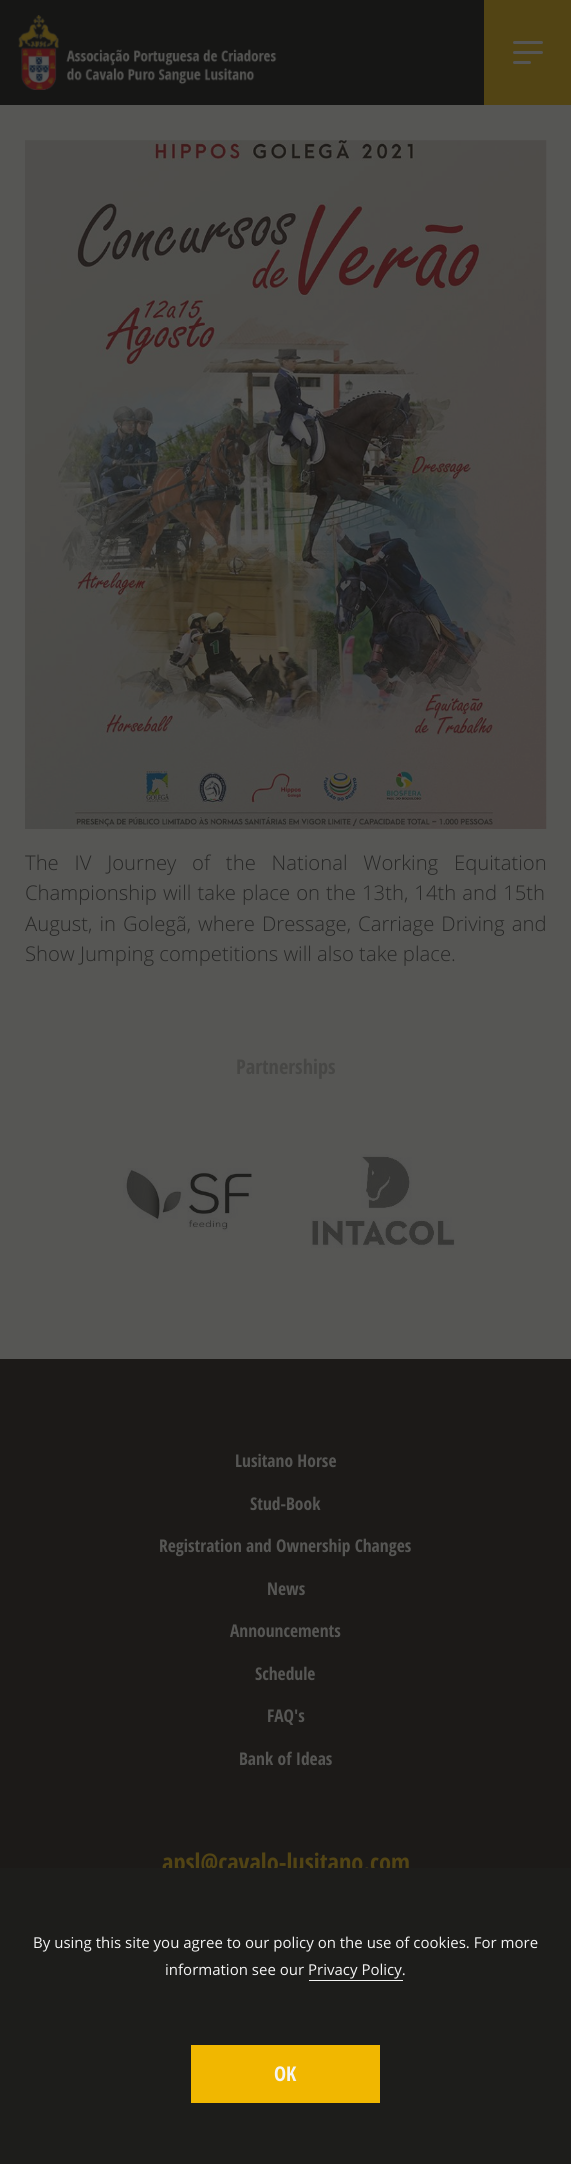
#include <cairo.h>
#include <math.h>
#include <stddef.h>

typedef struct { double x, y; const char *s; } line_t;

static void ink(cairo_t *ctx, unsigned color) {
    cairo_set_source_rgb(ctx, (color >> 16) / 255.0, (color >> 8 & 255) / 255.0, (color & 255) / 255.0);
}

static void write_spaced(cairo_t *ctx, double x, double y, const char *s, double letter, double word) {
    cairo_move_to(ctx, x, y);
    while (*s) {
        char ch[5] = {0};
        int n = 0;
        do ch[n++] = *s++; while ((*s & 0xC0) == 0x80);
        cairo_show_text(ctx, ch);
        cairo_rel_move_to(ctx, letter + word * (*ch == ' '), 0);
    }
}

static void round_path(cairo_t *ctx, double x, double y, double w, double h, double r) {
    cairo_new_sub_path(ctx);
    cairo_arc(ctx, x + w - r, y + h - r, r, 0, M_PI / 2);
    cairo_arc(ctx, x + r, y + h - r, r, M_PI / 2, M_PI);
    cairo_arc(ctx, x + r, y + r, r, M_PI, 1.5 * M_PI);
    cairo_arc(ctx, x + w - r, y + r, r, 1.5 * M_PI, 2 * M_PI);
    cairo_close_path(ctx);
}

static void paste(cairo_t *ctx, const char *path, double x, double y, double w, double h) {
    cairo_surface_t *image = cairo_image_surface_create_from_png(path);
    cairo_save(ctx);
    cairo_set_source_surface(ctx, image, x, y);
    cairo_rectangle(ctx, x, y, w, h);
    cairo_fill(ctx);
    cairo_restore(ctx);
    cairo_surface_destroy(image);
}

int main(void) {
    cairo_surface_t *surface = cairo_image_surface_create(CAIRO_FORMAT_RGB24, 571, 2164);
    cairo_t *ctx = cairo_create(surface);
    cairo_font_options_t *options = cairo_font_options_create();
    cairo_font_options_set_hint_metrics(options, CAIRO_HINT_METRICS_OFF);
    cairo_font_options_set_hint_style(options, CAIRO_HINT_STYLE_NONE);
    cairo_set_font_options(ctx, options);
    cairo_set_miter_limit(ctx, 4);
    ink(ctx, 0x565654);
    cairo_paint(ctx);
    ink(ctx, 0x161615);
    cairo_rectangle(ctx, 0, 0, 484, 105);
    cairo_fill(ctx);
    paste(ctx, "media/1.png", 18, 15, 259, 75);
    ink(ctx, 0x524414);
    cairo_rectangle(ctx, 484, 0, 87, 105);
    cairo_fill(ctx);
    ink(ctx, 0x565654);
    round_path(ctx, 513, 41, 30, 3, 1.5);
    cairo_fill(ctx);
    round_path(ctx, 513, 51, 30, 3, 1.5);
    cairo_fill(ctx);
    round_path(ctx, 513, 61, 18, 3, 1.5);
    cairo_fill(ctx);
    paste(ctx, "media/2.png", 25, 140, 522, 689);
    cairo_select_font_face(ctx, "Open Sans Light", CAIRO_FONT_SLANT_NORMAL, CAIRO_FONT_WEIGHT_NORMAL);
    cairo_set_font_size(ctx, 20.3);
    ink(ctx, 0x272726);
    write_spaced(ctx, 25, 870, "The IV Journey of the National Working Equitation", 0, 10.5);
    write_spaced(ctx, 25, 900, "Championship will take place on the 13th, 14th and 15th", 0, 0.75);
    write_spaced(ctx, 25, 931, "August, in Golegã, where Dressage, Carriage Driving and", 0, 1.75);
    cairo_move_to(ctx, 25, 961);
    cairo_show_text(ctx, "Show Jumping competitions will also take place.");
    cairo_select_font_face(ctx, "Open Sans Condensed", CAIRO_FONT_SLANT_NORMAL, CAIRO_FONT_WEIGHT_BOLD);
    ink(ctx, 0x464644);
    cairo_move_to(ctx, 236, 1074);
    cairo_show_text(ctx, "Partnerships");
    paste(ctx, "media/3.png", 123, 1168, 129, 64);
    paste(ctx, "media/4.png", 311, 1154, 144, 94);
    ink(ctx, 0x1C1A18);
    cairo_rectangle(ctx, 0, 1359, 571, 509);
    cairo_fill(ctx);
    cairo_set_font_size(ctx, 17.5);
    ink(ctx, 0x565654);
    {
        static const line_t items[] = {
            {235, 1467, "Lusitano Horse"},
            {250, 1510, "Stud-Book"},
            {159, 1552, "Registration and Ownership Changes"},
            {267, 1595, "News"},
            {230, 1637, "Announcements"},
            {255, 1680, "Schedule"},
            {267, 1722, "FAQ's"},
            {239, 1765, "Bank of Ideas"},
        };
        for (size_t i = 0; i < sizeof items / sizeof *items; i++) {
            cairo_move_to(ctx, items[i].x, items[i].y);
            cairo_show_text(ctx, items[i].s);
        }
    }
    cairo_set_font_size(ctx, 24.4);
    ink(ctx, 0x524414);
    cairo_move_to(ctx, 162, 1871);
    cairo_show_text(ctx, "apsl@cavalo-lusitano.com");
    ink(ctx, 0x1D1D1B);
    cairo_rectangle(ctx, 0, 1868, 571, 296);
    cairo_fill(ctx);
    cairo_select_font_face(ctx, "Open Sans", CAIRO_FONT_SLANT_NORMAL, CAIRO_FONT_WEIGHT_NORMAL);
    cairo_set_font_size(ctx, 15);
    ink(ctx, 0xF4F4F4);
    cairo_move_to(ctx, 33, 1948);
    cairo_show_text(ctx, "By using this site you agree to our policy on the use of cookies. For more");
    cairo_move_to(ctx, 165, 1975);
    cairo_show_text(ctx, "information see our Privacy Policy.");
    cairo_rectangle(ctx, 309, 1980, 94, 1);
    cairo_fill(ctx);
    ink(ctx, 0xF1B700);
    cairo_rectangle(ctx, 191, 2045, 189, 58);
    cairo_fill(ctx);
    cairo_select_font_face(ctx, "Open Sans Condensed", CAIRO_FONT_SLANT_NORMAL, CAIRO_FONT_WEIGHT_BOLD);
    cairo_set_font_size(ctx, 20.3);
    ink(ctx, 0xF4F4F4);
    cairo_move_to(ctx, 274, 2081);
    cairo_show_text(ctx, "OK");
    cairo_surface_write_to_png(surface, "image.png");
    cairo_font_options_destroy(options);
    cairo_destroy(ctx);
    cairo_surface_destroy(surface);
    return 0;
}
